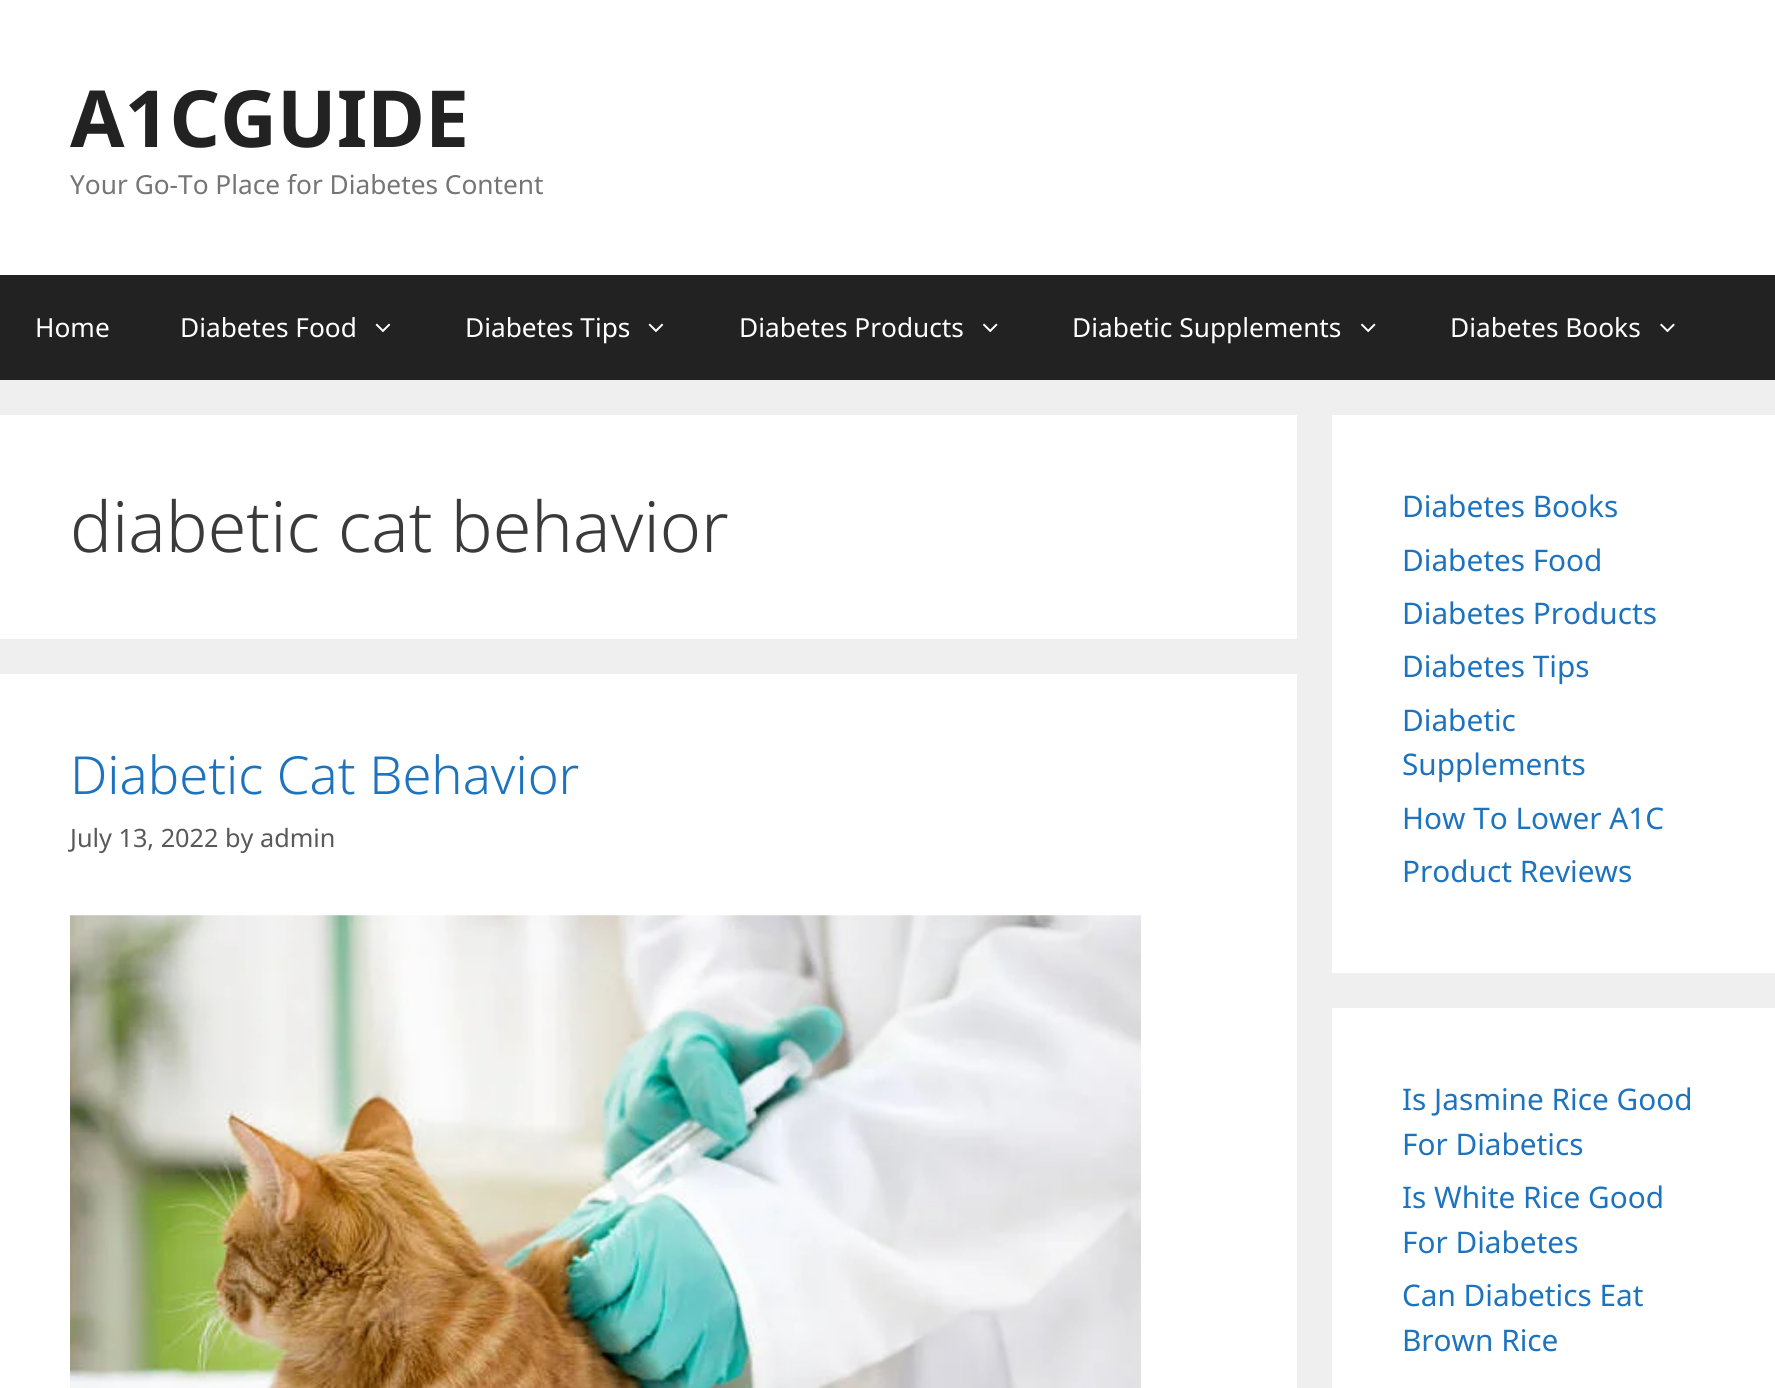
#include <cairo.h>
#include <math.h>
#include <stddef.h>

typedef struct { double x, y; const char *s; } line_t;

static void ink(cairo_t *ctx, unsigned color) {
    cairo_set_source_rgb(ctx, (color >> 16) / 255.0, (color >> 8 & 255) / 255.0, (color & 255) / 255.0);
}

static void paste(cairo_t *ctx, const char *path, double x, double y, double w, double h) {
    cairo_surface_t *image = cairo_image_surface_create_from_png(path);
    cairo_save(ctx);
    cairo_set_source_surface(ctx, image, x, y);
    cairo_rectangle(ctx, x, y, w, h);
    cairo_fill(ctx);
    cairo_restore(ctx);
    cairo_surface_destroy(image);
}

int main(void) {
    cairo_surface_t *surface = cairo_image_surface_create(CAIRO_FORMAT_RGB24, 1775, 1388);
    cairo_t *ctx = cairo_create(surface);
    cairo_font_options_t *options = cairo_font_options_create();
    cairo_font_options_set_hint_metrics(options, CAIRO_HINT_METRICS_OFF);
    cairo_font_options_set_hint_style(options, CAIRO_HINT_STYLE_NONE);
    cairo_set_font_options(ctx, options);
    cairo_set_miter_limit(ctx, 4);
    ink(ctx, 0xEFEFEF);
    cairo_paint(ctx);
    ink(ctx, 0xFFFFFF);
    cairo_rectangle(ctx, 0, 0, 1775, 275);
    cairo_fill(ctx);
    cairo_select_font_face(ctx, "Noto Sans", CAIRO_FONT_SLANT_NORMAL, CAIRO_FONT_WEIGHT_BOLD);
    cairo_set_font_size(ctx, 78.75);
    ink(ctx, 0x222222);
    cairo_move_to(ctx, 70, 147);
    cairo_show_text(ctx, "A1CGUIDE");
    cairo_select_font_face(ctx, "Noto Sans", CAIRO_FONT_SLANT_NORMAL, CAIRO_FONT_WEIGHT_NORMAL);
    cairo_set_font_size(ctx, 26.25);
    ink(ctx, 0x757575);
    cairo_move_to(ctx, 70, 194);
    cairo_show_text(ctx, "Your Go-To Place for Diabetes Content");
    ink(ctx, 0x222222);
    cairo_rectangle(ctx, 0, 275, 1775, 105);
    cairo_fill(ctx);
    ink(ctx, 0xFFFFFF);
    cairo_move_to(ctx, 35, 337);
    cairo_show_text(ctx, "Home");
    cairo_move_to(ctx, 180, 337);
    cairo_show_text(ctx, "Diabetes Food");
    paste(ctx, "media/1.png", 375, 323, 16, 10);
    cairo_move_to(ctx, 465, 337);
    cairo_show_text(ctx, "Diabetes Tips");
    paste(ctx, "media/1.png", 648, 323, 16, 10);
    cairo_move_to(ctx, 739, 337);
    cairo_show_text(ctx, "Diabetes Products");
    paste(ctx, "media/2.png", 983, 323, 15, 10);
    cairo_move_to(ctx, 1072, 337);
    cairo_show_text(ctx, "Diabetic Supplements");
    paste(ctx, "media/2.png", 1361, 323, 15, 10);
    cairo_move_to(ctx, 1450, 337);
    cairo_show_text(ctx, "Diabetes Books");
    paste(ctx, "media/3.png", 1660, 323, 15, 10);
    cairo_rectangle(ctx, 0, 415, 1297, 224);
    cairo_fill(ctx);
    cairo_select_font_face(ctx, "Noto Sans Light", CAIRO_FONT_SLANT_NORMAL, CAIRO_FONT_WEIGHT_NORMAL);
    cairo_set_font_size(ctx, 70);
    ink(ctx, 0x3A3A3A);
    cairo_move_to(ctx, 70, 552);
    cairo_show_text(ctx, "diabetic cat behavior");
    ink(ctx, 0xFFFFFF);
    cairo_rectangle(ctx, 0, 674, 1297, 714);
    cairo_fill(ctx);
    cairo_set_font_size(ctx, 52.5);
    ink(ctx, 0x1E73BE);
    cairo_move_to(ctx, 70, 794);
    cairo_show_text(ctx, "Diabetic Cat Behavior");
    cairo_select_font_face(ctx, "Noto Sans", CAIRO_FONT_SLANT_NORMAL, CAIRO_FONT_WEIGHT_NORMAL);
    cairo_set_font_size(ctx, 25.25);
    ink(ctx, 0x595959);
    cairo_move_to(ctx, 70, 847);
    cairo_show_text(ctx, "July 13, 2022 by admin");
    paste(ctx, "media/4.png", 70, 915, 1071, 473);
    ink(ctx, 0xFFFFFF);
    cairo_rectangle(ctx, 1332, 415, 443, 558);
    cairo_fill(ctx);
    cairo_set_font_size(ctx, 29.75);
    ink(ctx, 0x1E73BE);
    {
        static const line_t items[] = {
            {1402, 517, "Diabetes Books"},
            {1402, 571, "Diabetes Food"},
            {1402, 624, "Diabetes Products"},
            {1402, 677, "Diabetes Tips"},
            {1402, 731, "Diabetic"},
            {1402, 775, "Supplements"},
            {1402, 829, "How To Lower A1C"},
            {1402, 882, "Product Reviews"},
        };
        for (size_t i = 0; i < sizeof items / sizeof *items; i++) {
            cairo_move_to(ctx, items[i].x, items[i].y);
            cairo_show_text(ctx, items[i].s);
        }
    }
    ink(ctx, 0xFFFFFF);
    cairo_rectangle(ctx, 1332, 1008, 443, 380);
    cairo_fill(ctx);
    ink(ctx, 0x1E73BE);
    {
        static const line_t items[] = {
            {1402, 1110, "Is Jasmine Rice Good"},
            {1402, 1155, "For Diabetics"},
            {1402, 1208, "Is White Rice Good"},
            {1402, 1253, "For Diabetes"},
            {1402, 1306, "Can Diabetics Eat"},
            {1402, 1351, "Brown Rice"},
        };
        for (size_t i = 0; i < sizeof items / sizeof *items; i++) {
            cairo_move_to(ctx, items[i].x, items[i].y);
            cairo_show_text(ctx, items[i].s);
        }
    }
    cairo_surface_write_to_png(surface, "image.png");
    cairo_font_options_destroy(options);
    cairo_destroy(ctx);
    cairo_surface_destroy(surface);
    return 0;
}
